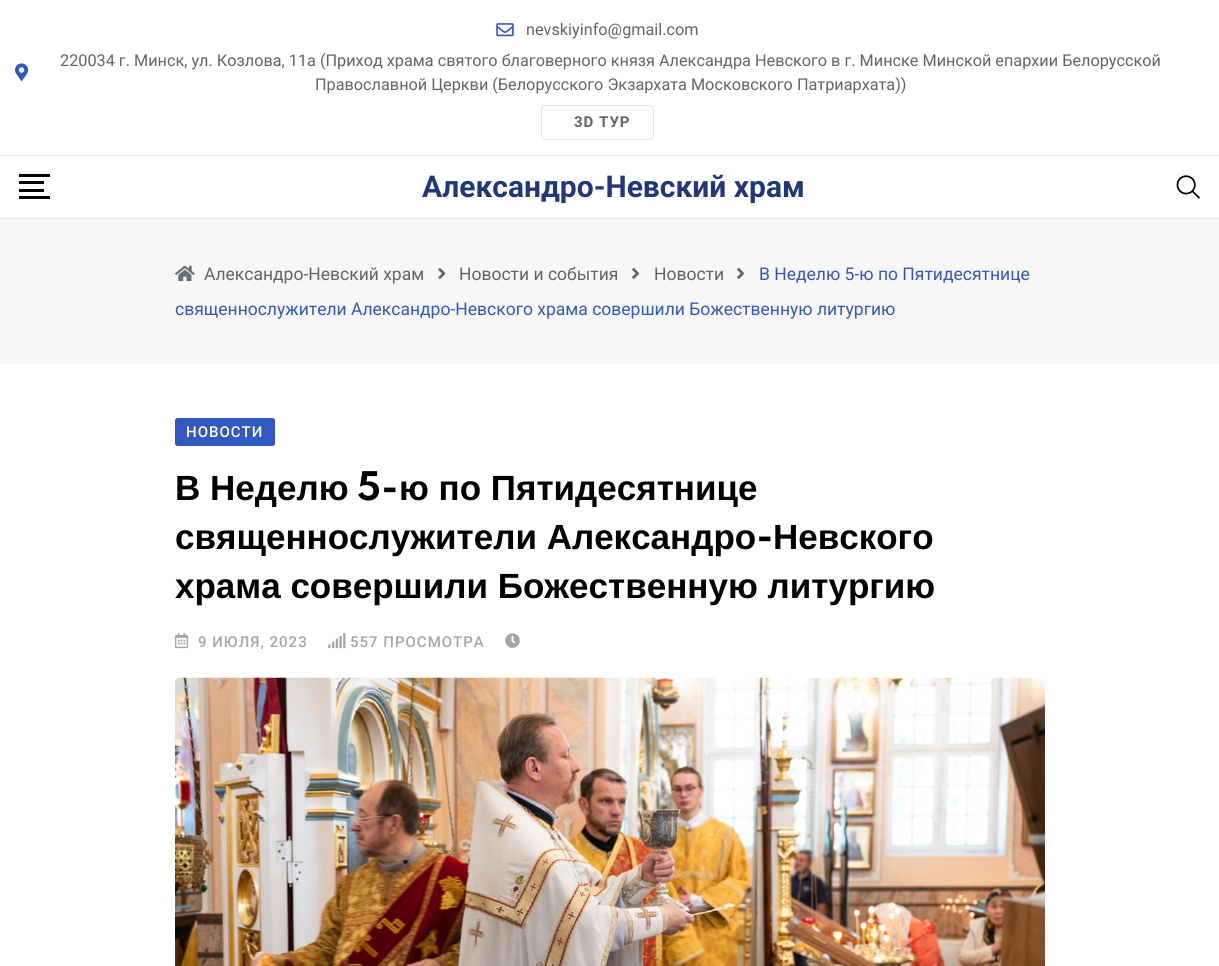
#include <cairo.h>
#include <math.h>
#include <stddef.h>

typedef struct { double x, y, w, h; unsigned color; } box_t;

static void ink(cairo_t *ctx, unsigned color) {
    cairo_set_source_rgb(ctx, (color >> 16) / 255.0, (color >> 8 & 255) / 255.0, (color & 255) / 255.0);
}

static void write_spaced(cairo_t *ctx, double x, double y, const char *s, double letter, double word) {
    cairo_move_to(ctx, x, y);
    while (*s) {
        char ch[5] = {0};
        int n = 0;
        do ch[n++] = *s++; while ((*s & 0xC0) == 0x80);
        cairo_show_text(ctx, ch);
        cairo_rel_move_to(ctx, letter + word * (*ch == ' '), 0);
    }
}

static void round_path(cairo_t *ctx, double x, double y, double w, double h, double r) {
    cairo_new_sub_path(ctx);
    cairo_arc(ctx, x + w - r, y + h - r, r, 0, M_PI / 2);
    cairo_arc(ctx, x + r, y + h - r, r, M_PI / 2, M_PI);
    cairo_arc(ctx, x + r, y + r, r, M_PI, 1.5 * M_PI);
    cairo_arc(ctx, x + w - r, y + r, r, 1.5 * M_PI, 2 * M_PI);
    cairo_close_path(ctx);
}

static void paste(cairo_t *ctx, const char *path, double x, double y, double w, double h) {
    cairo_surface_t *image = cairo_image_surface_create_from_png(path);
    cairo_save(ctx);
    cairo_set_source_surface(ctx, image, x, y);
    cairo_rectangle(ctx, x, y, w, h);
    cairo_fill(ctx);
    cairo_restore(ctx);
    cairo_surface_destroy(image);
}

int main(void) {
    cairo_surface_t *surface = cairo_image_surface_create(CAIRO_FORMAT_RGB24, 1219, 966);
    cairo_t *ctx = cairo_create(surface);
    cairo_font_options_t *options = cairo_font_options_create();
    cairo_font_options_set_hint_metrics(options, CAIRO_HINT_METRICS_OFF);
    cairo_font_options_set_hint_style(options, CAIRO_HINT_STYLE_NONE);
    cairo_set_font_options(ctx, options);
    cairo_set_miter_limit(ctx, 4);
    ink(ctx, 0xFFFFFF);
    cairo_paint(ctx);
    ink(ctx, 0xE5E5E5);
    cairo_rectangle(ctx, 0, 155, 1219, 1);
    cairo_fill(ctx);
    paste(ctx, "media/1.png", 496, 23, 18, 14);
    cairo_select_font_face(ctx, "Roboto", CAIRO_FONT_SLANT_NORMAL, CAIRO_FONT_WEIGHT_NORMAL);
    cairo_set_font_size(ctx, 16.25);
    ink(ctx, 0x646464);
    cairo_move_to(ctx, 526, 35);
    cairo_show_text(ctx, "nevskiyinfo@gmail.com");
    paste(ctx, "media/2.png", 15, 63, 14, 18);
    cairo_move_to(ctx, 60, 66);
    cairo_show_text(ctx, "220034 г. Минск, ул. Козлова, 11a (Приход храма святого благоверного князя Александра Невского в г. Минске Минской епархии Белорусской");
    cairo_move_to(ctx, 315, 90);
    cairo_show_text(ctx, "Православной Церкви (Белорусского Экзархата Московского Патриархата))");
    round_path(ctx, 541.5, 105.5, 112, 34, 4.5);
    ink(ctx, 0xE5E5E5);
    cairo_set_line_width(ctx, 1);
    cairo_stroke(ctx);
    cairo_select_font_face(ctx, "Roboto", CAIRO_FONT_SLANT_NORMAL, CAIRO_FONT_WEIGHT_BOLD);
    cairo_set_font_size(ctx, 15);
    ink(ctx, 0x646464);
    write_spaced(ctx, 574, 127, "3D ТУР", 1, 0);
    {
        static const box_t items[] = {
            {0, 218, 1219, 1, 0xE9E9E9},
            {19, 174, 31, 3, 0x000000},
            {19, 181, 25, 3, 0x000000},
            {19, 189, 25, 3, 0x000000},
            {19, 196, 31, 3, 0x000000},
        };
        for (size_t i = 0; i < sizeof items / sizeof *items; i++) {
            ink(ctx, items[i].color);
            cairo_rectangle(ctx, items[i].x, items[i].y, items[i].w, items[i].h);
            cairo_fill(ctx);
        }
    }
    cairo_set_font_size(ctx, 30);
    ink(ctx, 0x203879);
    cairo_move_to(ctx, 422, 197);
    cairo_show_text(ctx, "Александро-Невский храм");
    paste(ctx, "media/3.png", 1176, 175, 24, 24);
    ink(ctx, 0xF7F7F7);
    cairo_rectangle(ctx, 0, 219, 1219, 145);
    cairo_fill(ctx);
    paste(ctx, "media/4.png", 175, 265, 20, 17);
    cairo_select_font_face(ctx, "Roboto", CAIRO_FONT_SLANT_NORMAL, CAIRO_FONT_WEIGHT_NORMAL);
    cairo_set_font_size(ctx, 17.5);
    ink(ctx, 0x646464);
    cairo_move_to(ctx, 204, 280);
    cairo_show_text(ctx, "Александро-Невский храм");
    paste(ctx, "media/5.png", 438, 268, 8, 11);
    cairo_move_to(ctx, 459, 280);
    cairo_show_text(ctx, "Новости и события");
    paste(ctx, "media/6.png", 632, 268, 8, 11);
    cairo_move_to(ctx, 654, 280);
    cairo_show_text(ctx, "Новости");
    paste(ctx, "media/6.png", 737, 268, 8, 11);
    ink(ctx, 0x3358BF);
    cairo_move_to(ctx, 759, 280);
    cairo_show_text(ctx, "В Неделю 5-ю по Пятидесятнице");
    cairo_move_to(ctx, 175, 315);
    cairo_show_text(ctx, "священнослужители Александро-Невского храма совершили Божественную литургию");
    round_path(ctx, 175, 418, 100, 28, 2.5);
    cairo_fill(ctx);
    cairo_select_font_face(ctx, "Roboto Medium", CAIRO_FONT_SLANT_NORMAL, CAIRO_FONT_WEIGHT_NORMAL);
    cairo_set_font_size(ctx, 15);
    ink(ctx, 0xFFFFFF);
    write_spaced(ctx, 186, 437, "НОВОСТИ", 1, 0);
    cairo_select_font_face(ctx, "Liberation Sans", CAIRO_FONT_SLANT_NORMAL, CAIRO_FONT_WEIGHT_BOLD);
    cairo_set_font_size(ctx, 35);
    ink(ctx, 0x000000);
    cairo_move_to(ctx, 175, 500);
    cairo_show_text(ctx, "В Неделю");
    cairo_select_font_face(ctx, "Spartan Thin", CAIRO_FONT_SLANT_NORMAL, CAIRO_FONT_WEIGHT_BOLD);
    cairo_move_to(ctx, 357, 500);
    cairo_show_text(ctx, "5-");
    cairo_select_font_face(ctx, "Liberation Sans", CAIRO_FONT_SLANT_NORMAL, CAIRO_FONT_WEIGHT_BOLD);
    cairo_move_to(ctx, 399, 500);
    cairo_show_text(ctx, "ю по Пятидесятнице");
    cairo_move_to(ctx, 175, 549);
    cairo_show_text(ctx, "священнослужители Александро");
    cairo_select_font_face(ctx, "Spartan Thin", CAIRO_FONT_SLANT_NORMAL, CAIRO_FONT_WEIGHT_BOLD);
    cairo_move_to(ctx, 756, 549);
    cairo_show_text(ctx, "-");
    cairo_select_font_face(ctx, "Liberation Sans", CAIRO_FONT_SLANT_NORMAL, CAIRO_FONT_WEIGHT_BOLD);
    cairo_move_to(ctx, 773, 549);
    cairo_show_text(ctx, "Невского");
    cairo_move_to(ctx, 175, 598);
    cairo_show_text(ctx, "храма совершили Божественную литургию");
    paste(ctx, "media/7.png", 175, 633, 14, 16);
    cairo_select_font_face(ctx, "Roboto Medium", CAIRO_FONT_SLANT_NORMAL, CAIRO_FONT_WEIGHT_NORMAL);
    cairo_set_font_size(ctx, 15);
    ink(ctx, 0xA5A6AA);
    write_spaced(ctx, 198, 647, "9 ИЮЛЯ, 2023", 1, 0);
    paste(ctx, "media/8.png", 328, 633, 18, 16);
    write_spaced(ctx, 350, 647, "557 ПРОСМОТРА", 1, 0);
    paste(ctx, "media/9.png", 505, 633, 15, 15);
    paste(ctx, "media/10.png", 175, 677, 870, 289);
    cairo_surface_write_to_png(surface, "image.png");
    cairo_font_options_destroy(options);
    cairo_destroy(ctx);
    cairo_surface_destroy(surface);
    return 0;
}
